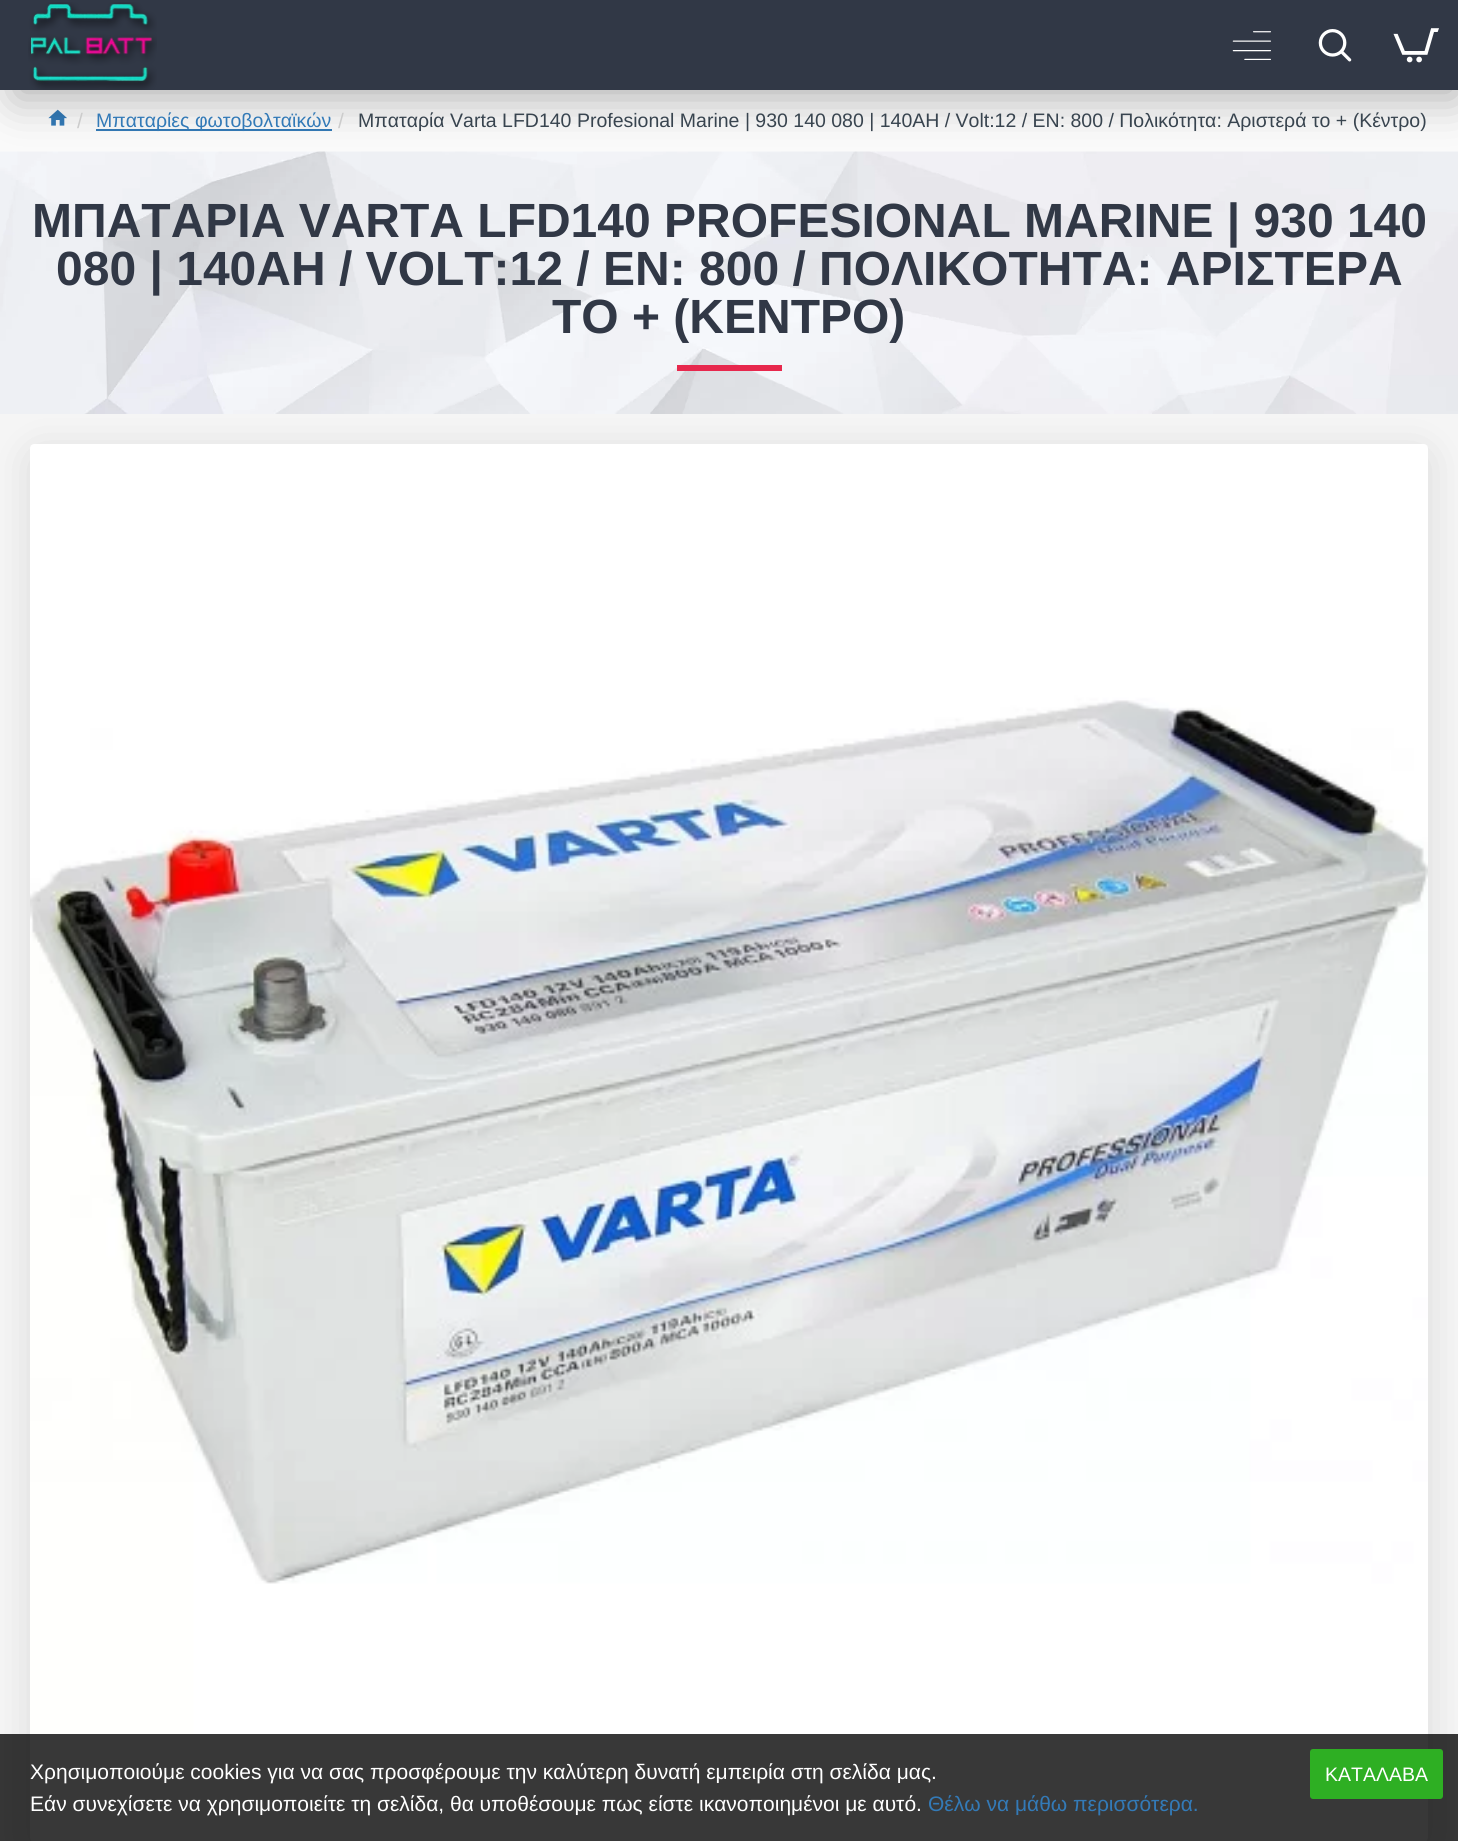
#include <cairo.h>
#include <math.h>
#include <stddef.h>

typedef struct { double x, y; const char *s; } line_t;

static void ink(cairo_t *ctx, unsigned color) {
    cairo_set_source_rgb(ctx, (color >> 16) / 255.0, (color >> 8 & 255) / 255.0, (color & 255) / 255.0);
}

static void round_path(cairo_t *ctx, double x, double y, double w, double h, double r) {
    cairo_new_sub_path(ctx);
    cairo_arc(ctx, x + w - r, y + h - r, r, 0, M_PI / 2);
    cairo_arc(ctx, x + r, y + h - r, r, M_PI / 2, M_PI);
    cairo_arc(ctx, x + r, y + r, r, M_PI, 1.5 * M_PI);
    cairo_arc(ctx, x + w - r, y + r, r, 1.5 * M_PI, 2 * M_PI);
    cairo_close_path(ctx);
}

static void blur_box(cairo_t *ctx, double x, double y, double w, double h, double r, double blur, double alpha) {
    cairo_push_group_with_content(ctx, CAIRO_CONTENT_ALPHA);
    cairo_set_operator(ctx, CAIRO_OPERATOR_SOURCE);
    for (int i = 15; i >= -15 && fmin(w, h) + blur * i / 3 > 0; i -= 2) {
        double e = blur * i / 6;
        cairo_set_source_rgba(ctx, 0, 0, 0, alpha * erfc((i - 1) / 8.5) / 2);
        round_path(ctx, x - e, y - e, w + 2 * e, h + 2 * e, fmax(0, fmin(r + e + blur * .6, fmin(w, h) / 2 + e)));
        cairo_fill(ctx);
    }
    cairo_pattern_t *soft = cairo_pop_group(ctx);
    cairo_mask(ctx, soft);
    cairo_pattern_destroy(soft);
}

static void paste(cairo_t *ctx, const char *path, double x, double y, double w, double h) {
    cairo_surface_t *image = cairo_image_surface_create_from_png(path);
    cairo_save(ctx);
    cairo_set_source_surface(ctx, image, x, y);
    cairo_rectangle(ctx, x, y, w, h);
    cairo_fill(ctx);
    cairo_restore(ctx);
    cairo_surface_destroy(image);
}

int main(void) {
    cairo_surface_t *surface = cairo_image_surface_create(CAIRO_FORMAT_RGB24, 1458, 1841);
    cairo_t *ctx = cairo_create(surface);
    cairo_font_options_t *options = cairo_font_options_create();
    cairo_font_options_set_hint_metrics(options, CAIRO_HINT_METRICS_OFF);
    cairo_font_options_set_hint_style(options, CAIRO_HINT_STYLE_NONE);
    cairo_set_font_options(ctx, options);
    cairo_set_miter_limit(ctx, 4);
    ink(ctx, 0xFAFAFA);
    cairo_paint(ctx);
    paste(ctx, "media/5.png", 48, 109, 19, 17);
    ink(ctx, 0x337AB7);
    cairo_rectangle(ctx, 96, 129, 236, 2);
    cairo_fill(ctx);
    paste(ctx, "media/6.png", 0, 151, 1458, 263);
    ink(ctx, 0x000000);
    blur_box(ctx, 15, 23, 1443, 75, 0, 22.5, 0.3);
    ink(ctx, 0x313846);
    cairo_rectangle(ctx, 0, 0, 1458, 90);
    cairo_fill(ctx);
    paste(ctx, "media/1.png", 28, 2, 129, 88);
    paste(ctx, "media/2.png", 1232, 31, 39, 29);
    paste(ctx, "media/3.png", 1318, 29, 34, 33);
    paste(ctx, "media/4.png", 1393, 28, 46, 35);
    cairo_select_font_face(ctx, "Liberation Sans", CAIRO_FONT_SLANT_NORMAL, CAIRO_FONT_WEIGHT_NORMAL);
    cairo_set_font_size(ctx, 21);
    ink(ctx, 0xCCCCCC);
    cairo_move_to(ctx, 77, 128);
    cairo_show_text(ctx, "/");
    cairo_set_font_size(ctx, 19.5);
    ink(ctx, 0x337AB7);
    cairo_move_to(ctx, 96, 127);
    cairo_show_text(ctx, "Μπαταρίες φωτοβολταϊκών");
    cairo_set_font_size(ctx, 21);
    ink(ctx, 0xCCCCCC);
    cairo_move_to(ctx, 338, 128);
    cairo_show_text(ctx, "/");
    cairo_set_font_size(ctx, 19.5);
    ink(ctx, 0x38444F);
    cairo_move_to(ctx, 358, 127);
    cairo_show_text(ctx, "Μπαταρία Varta LFD140 Profesional Marine | 930 140 080 | 140AH / Volt:12 / EN: 800 / Πολικότητα: Αριστερά το + (Κέντρο)");
    cairo_select_font_face(ctx, "Liberation Sans", CAIRO_FONT_SLANT_NORMAL, CAIRO_FONT_WEIGHT_BOLD);
    cairo_set_font_size(ctx, 48);
    ink(ctx, 0x313846);
    {
        static const line_t items[] = {
            {32, 237, "ΜΠΑΤΑΡΙΑ VARTA LFD140 PROFESIONAL MARINE | 930 140"},
            {56, 285, "080 | 140AH / VOLT:12 / EN: 800 / ΠΟΛΙΚΟΤΗΤΑ: ΑΡΙΣΤΕΡΑ"},
            {552, 333, "ΤΟ + (ΚΕΝΤΡΟ)"},
        };
        for (size_t i = 0; i < sizeof items / sizeof *items; i++) {
            cairo_move_to(ctx, items[i].x, items[i].y);
            cairo_show_text(ctx, items[i].s);
        }
    }
    ink(ctx, 0xE7284D);
    cairo_rectangle(ctx, 677, 365, 105, 6);
    cairo_fill(ctx);
    ink(ctx, 0xF5F5F5);
    cairo_rectangle(ctx, 0, 414, 1458, 1427);
    cairo_fill(ctx);
    ink(ctx, 0x000000);
    blur_box(ctx, 38, 459, 1383, 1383, 0, 22.5, 0.15);
    paste(ctx, "media/7.png", 30, 444, 1398, 1397);
    cairo_set_source_rgba(ctx, 0, 0, 0, 0.78);
    cairo_rectangle(ctx, 0, 1734, 1458, 107);
    cairo_fill(ctx);
    cairo_select_font_face(ctx, "Liberation Sans", CAIRO_FONT_SLANT_NORMAL, CAIRO_FONT_WEIGHT_NORMAL);
    cairo_set_font_size(ctx, 21);
    ink(ctx, 0xFFFFFF);
    cairo_move_to(ctx, 30, 1779);
    cairo_show_text(ctx, "Χρησιμοποιούμε cookies για να σας προσφέρουμε την καλύτερη δυνατή εμπειρία στη σελίδα μας.");
    cairo_move_to(ctx, 30, 1811);
    cairo_show_text(ctx, "Εάν συνεχίσετε να χρησιμοποιείτε τη σελίδα, θα υποθέσουμε πως είστε ικανοποιημένοι με αυτό.");
    ink(ctx, 0x337AB7);
    cairo_move_to(ctx, 928, 1811);
    cairo_show_text(ctx, "Θέλω να μάθω περισσότερα.");
    ink(ctx, 0x2EAF23);
    round_path(ctx, 1310, 1749, 133, 50, 3);
    cairo_fill(ctx);
    cairo_set_font_size(ctx, 19.5);
    ink(ctx, 0xFFFFFF);
    cairo_move_to(ctx, 1325, 1781);
    cairo_show_text(ctx, "ΚΑΤΑΛΑΒΑ");
    cairo_surface_write_to_png(surface, "image.png");
    cairo_font_options_destroy(options);
    cairo_destroy(ctx);
    cairo_surface_destroy(surface);
    return 0;
}
